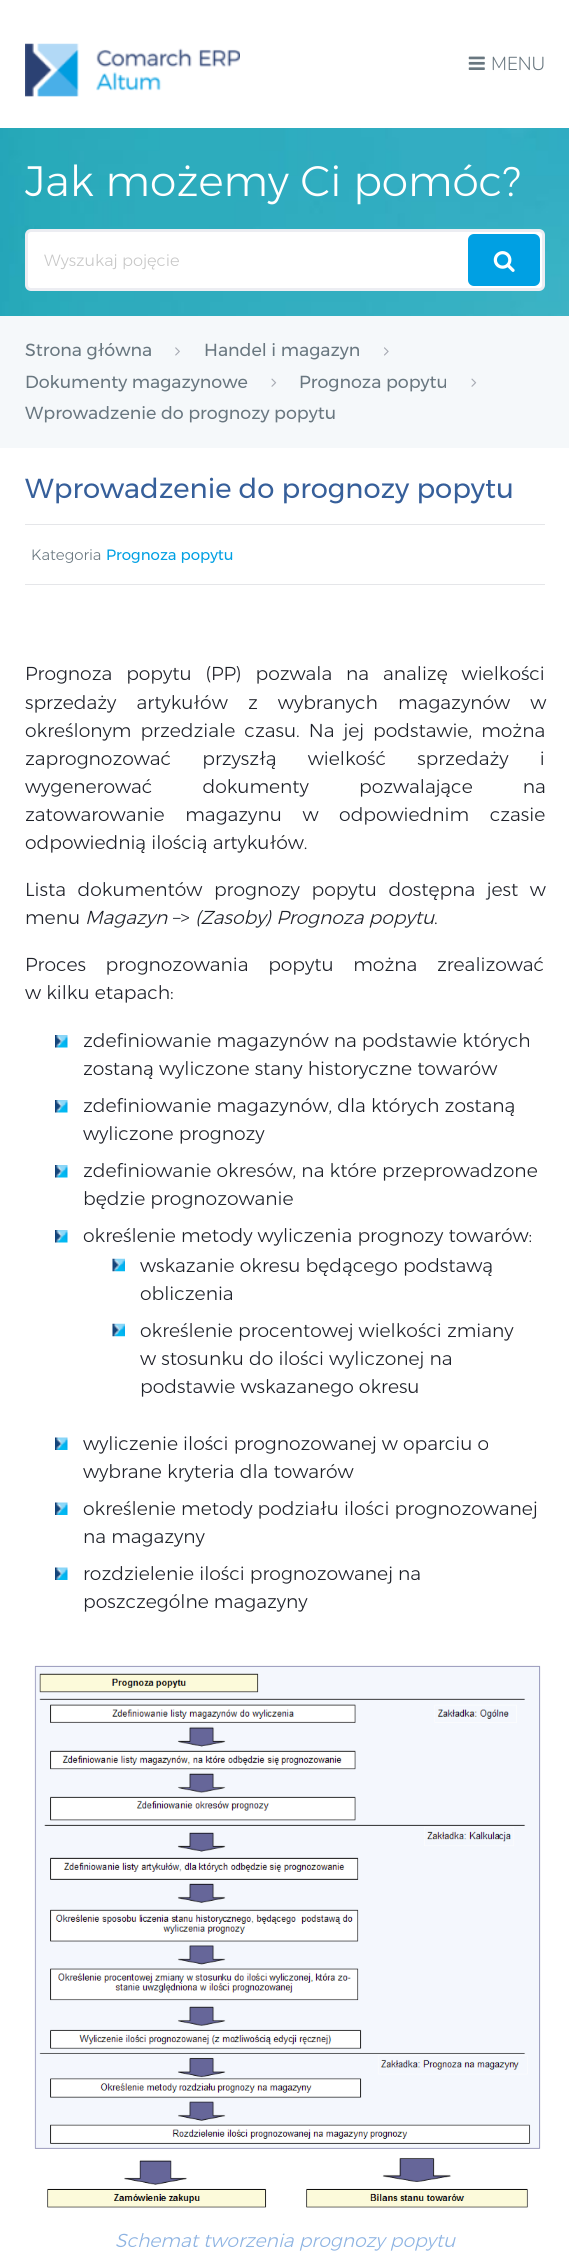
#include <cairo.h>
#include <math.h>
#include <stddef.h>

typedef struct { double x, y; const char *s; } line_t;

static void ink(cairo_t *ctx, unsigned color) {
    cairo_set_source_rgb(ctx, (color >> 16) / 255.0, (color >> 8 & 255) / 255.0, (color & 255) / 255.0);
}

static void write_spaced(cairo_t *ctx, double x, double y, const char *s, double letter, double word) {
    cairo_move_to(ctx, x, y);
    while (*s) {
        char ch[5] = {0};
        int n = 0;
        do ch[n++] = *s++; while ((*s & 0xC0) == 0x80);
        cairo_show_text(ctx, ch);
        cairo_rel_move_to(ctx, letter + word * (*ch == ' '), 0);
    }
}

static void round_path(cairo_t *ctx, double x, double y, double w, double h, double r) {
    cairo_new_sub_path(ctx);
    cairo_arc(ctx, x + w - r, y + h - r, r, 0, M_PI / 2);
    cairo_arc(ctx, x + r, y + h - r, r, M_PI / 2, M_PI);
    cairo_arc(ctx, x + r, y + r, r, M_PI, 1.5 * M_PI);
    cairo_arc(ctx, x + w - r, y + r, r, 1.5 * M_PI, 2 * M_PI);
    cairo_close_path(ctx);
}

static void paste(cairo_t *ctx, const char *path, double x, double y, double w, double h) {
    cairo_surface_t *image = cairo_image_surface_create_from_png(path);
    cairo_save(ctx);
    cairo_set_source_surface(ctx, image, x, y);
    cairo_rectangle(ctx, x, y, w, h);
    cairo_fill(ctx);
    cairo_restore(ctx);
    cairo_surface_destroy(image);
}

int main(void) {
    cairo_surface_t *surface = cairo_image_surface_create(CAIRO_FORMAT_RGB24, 569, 2258);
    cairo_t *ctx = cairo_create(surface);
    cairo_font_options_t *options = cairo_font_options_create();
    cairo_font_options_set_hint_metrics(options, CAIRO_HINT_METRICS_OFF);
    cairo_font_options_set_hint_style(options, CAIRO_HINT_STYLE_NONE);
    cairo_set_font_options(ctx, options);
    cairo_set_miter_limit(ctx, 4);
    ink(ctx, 0xFFFFFF);
    cairo_paint(ctx);
    paste(ctx, "media/1.png", 25, 43, 215, 54);
    paste(ctx, "media/2.png", 468, 56, 17, 14);
    cairo_select_font_face(ctx, "Nunito Light", CAIRO_FONT_SLANT_NORMAL, CAIRO_FONT_WEIGHT_NORMAL);
    cairo_set_font_size(ctx, 18.75);
    ink(ctx, 0x697780);
    cairo_move_to(ctx, 491, 70);
    cairo_show_text(ctx, "MENU");
    paste(ctx, "media/3.png", 0, 128, 569, 188);
    cairo_select_font_face(ctx, "Montserrat Light", CAIRO_FONT_SLANT_NORMAL, CAIRO_FONT_WEIGHT_NORMAL);
    cairo_set_font_size(ctx, 42.5);
    ink(ctx, 0xFFFFFF);
    cairo_move_to(ctx, 25, 196);
    cairo_show_text(ctx, "Jak możemy Ci pomóc?");
    round_path(ctx, 26.5, 230.5, 517, 59, 4.5);
    cairo_fill_preserve(ctx);
    ink(ctx, 0xECEDF2);
    cairo_set_line_width(ctx, 3);
    cairo_stroke(ctx);
    cairo_set_font_size(ctx, 16.25);
    ink(ctx, 0xC7C7C7);
    cairo_move_to(ctx, 44, 266);
    cairo_show_text(ctx, "Wyszukaj pojęcie");
    ink(ctx, 0x00A0E3);
    round_path(ctx, 468, 234, 72, 52, 6);
    cairo_fill(ctx);
    paste(ctx, "media/4.png", 493, 251, 22, 21);
    ink(ctx, 0xF5F8FA);
    cairo_rectangle(ctx, 0, 316, 569, 132);
    cairo_fill(ctx);
    cairo_select_font_face(ctx, "Montserrat", CAIRO_FONT_SLANT_NORMAL, CAIRO_FONT_WEIGHT_NORMAL);
    cairo_set_font_size(ctx, 17.5);
    ink(ctx, 0x697780);
    cairo_move_to(ctx, 25, 356);
    cairo_show_text(ctx, "Strona główna");
    paste(ctx, "media/5.png", 175, 347, 5, 9);
    cairo_move_to(ctx, 204, 356);
    cairo_show_text(ctx, "Handel i magazyn");
    paste(ctx, "media/6.png", 384, 347, 5, 9);
    cairo_move_to(ctx, 25, 388);
    cairo_show_text(ctx, "Dokumenty magazynowe");
    paste(ctx, "media/7.png", 271, 378, 6, 9);
    cairo_move_to(ctx, 299, 388);
    cairo_show_text(ctx, "Prognoza popytu");
    paste(ctx, "media/7.png", 471, 378, 6, 9);
    cairo_move_to(ctx, 25, 419);
    cairo_show_text(ctx, "Wprowadzenie do prognozy popytu");
    cairo_set_font_size(ctx, 27.5);
    ink(ctx, 0x365F9A);
    cairo_move_to(ctx, 25, 498);
    cairo_show_text(ctx, "Wprowadzenie do prognozy popytu");
    ink(ctx, 0xE5E6E9);
    cairo_rectangle(ctx, 25, 524, 520, 1);
    cairo_fill(ctx);
    cairo_rectangle(ctx, 25, 584, 520, 1);
    cairo_fill(ctx);
    cairo_select_font_face(ctx, "Montserrat Light", CAIRO_FONT_SLANT_NORMAL, CAIRO_FONT_WEIGHT_NORMAL);
    cairo_set_font_size(ctx, 15);
    ink(ctx, 0x697780);
    cairo_move_to(ctx, 31, 560);
    cairo_show_text(ctx, "Kategoria");
    cairo_select_font_face(ctx, "Montserrat", CAIRO_FONT_SLANT_NORMAL, CAIRO_FONT_WEIGHT_NORMAL);
    ink(ctx, 0x00A0E3);
    cairo_move_to(ctx, 106, 560);
    cairo_show_text(ctx, "Prognoza popytu");
    cairo_select_font_face(ctx, "Montserrat Light", CAIRO_FONT_SLANT_NORMAL, CAIRO_FONT_WEIGHT_NORMAL);
    cairo_set_font_size(ctx, 18.75);
    ink(ctx, 0x1E2129);
    write_spaced(ctx, 25, 680, "Prognoza popytu (PP) pozwala na analizę wielkości", 0, 8.75);
    write_spaced(ctx, 25, 709, "sprzedaży artykułów z wybranych magazynów w", 0, 15);
    write_spaced(ctx, 25, 737, "określonym przedziale czasu. Na jej podstawie, można", 0, 4);
    write_spaced(ctx, 25, 765, "zaprognozować przyszłą wielkość sprzedaży i", 0, 26);
    write_spaced(ctx, 25, 793, "wygenerować dokumenty pozwalające na", 0, 45);
    write_spaced(ctx, 25, 821, "zatowarowanie magazynu w odpowiednim czasie", 0, 15.5);
    cairo_move_to(ctx, 25, 849);
    cairo_show_text(ctx, "odpowiednią ilością artykułów.");
    write_spaced(ctx, 25, 896, "Lista dokumentów prognozy popytu dostępna jest w", 0, 6.5);
    cairo_move_to(ctx, 25, 924);
    cairo_show_text(ctx, "menu");
    cairo_select_font_face(ctx, "Montserrat Light", CAIRO_FONT_SLANT_ITALIC, CAIRO_FONT_WEIGHT_NORMAL);
    cairo_move_to(ctx, 85, 924);
    cairo_show_text(ctx, "Magazyn");
    cairo_select_font_face(ctx, "Montserrat Light", CAIRO_FONT_SLANT_NORMAL, CAIRO_FONT_WEIGHT_NORMAL);
    cairo_move_to(ctx, 173, 924);
    cairo_show_text(ctx, "–>");
    cairo_select_font_face(ctx, "Montserrat Light", CAIRO_FONT_SLANT_ITALIC, CAIRO_FONT_WEIGHT_NORMAL);
    cairo_move_to(ctx, 195, 924);
    cairo_show_text(ctx, "(Zasoby) Prognoza popytu");
    cairo_select_font_face(ctx, "Montserrat Light", CAIRO_FONT_SLANT_NORMAL, CAIRO_FONT_WEIGHT_NORMAL);
    cairo_move_to(ctx, 434, 924);
    cairo_show_text(ctx, ".");
    write_spaced(ctx, 25, 971, "Proces prognozowania popytu można zrealizować", 0, 14.5);
    cairo_move_to(ctx, 25, 999);
    cairo_show_text(ctx, "w kilku etapach:");
    paste(ctx, "media/8.png", 55, 1035, 13, 13);
    cairo_move_to(ctx, 83, 1047);
    cairo_show_text(ctx, "zdefiniowanie magazynów na podstawie których");
    cairo_move_to(ctx, 83, 1075);
    cairo_show_text(ctx, "zostaną wyliczone stany historyczne towarów");
    paste(ctx, "media/9.png", 55, 1100, 13, 13);
    cairo_move_to(ctx, 83, 1112);
    cairo_show_text(ctx, "zdefiniowanie magazynów, dla których zostaną");
    cairo_move_to(ctx, 83, 1140);
    cairo_show_text(ctx, "wyliczone prognozy");
    paste(ctx, "media/9.png", 55, 1165, 13, 13);
    cairo_move_to(ctx, 83, 1177);
    cairo_show_text(ctx, "zdefiniowanie okresów, na które przeprowadzone");
    cairo_move_to(ctx, 83, 1205);
    cairo_show_text(ctx, "będzie prognozowanie");
    paste(ctx, "media/9.png", 55, 1230, 13, 13);
    cairo_move_to(ctx, 83, 1242);
    cairo_show_text(ctx, "określenie metody wyliczenia prognozy towarów:");
    paste(ctx, "media/10.png", 112, 1258, 13, 14);
    cairo_move_to(ctx, 140, 1272);
    cairo_show_text(ctx, "wskazanie okresu będącego podstawą");
    cairo_move_to(ctx, 140, 1300);
    cairo_show_text(ctx, "obliczenia");
    paste(ctx, "media/10.png", 112, 1323, 13, 14);
    {
        static const line_t items[] = {
            {140, 1337, "określenie procentowej wielkości zmiany"},
            {140, 1365, "w stosunku do ilości wyliczonej na"},
            {140, 1393, "podstawie wskazanego okresu"},
        };
        for (size_t i = 0; i < sizeof items / sizeof *items; i++) {
            cairo_move_to(ctx, items[i].x, items[i].y);
            cairo_show_text(ctx, items[i].s);
        }
    }
    paste(ctx, "media/11.png", 55, 1437, 13, 13);
    cairo_move_to(ctx, 83, 1450);
    cairo_show_text(ctx, "wyliczenie ilości prognozowanej w oparciu o");
    cairo_move_to(ctx, 83, 1478);
    cairo_show_text(ctx, "wybrane kryteria dla towarów");
    paste(ctx, "media/11.png", 55, 1502, 13, 13);
    cairo_move_to(ctx, 83, 1515);
    cairo_show_text(ctx, "określenie metody podziału ilości prognozowanej");
    cairo_move_to(ctx, 83, 1543);
    cairo_show_text(ctx, "na magazyny");
    paste(ctx, "media/12.png", 55, 1567, 13, 13);
    cairo_move_to(ctx, 83, 1580);
    cairo_show_text(ctx, "rozdzielenie ilości prognozowanej na");
    cairo_move_to(ctx, 83, 1608);
    cairo_show_text(ctx, "poszczególne magazyny");
    paste(ctx, "media/13.png", 34, 1665, 507, 543);
    cairo_select_font_face(ctx, "Montserrat Light", CAIRO_FONT_SLANT_ITALIC, CAIRO_FONT_WEIGHT_NORMAL);
    ink(ctx, 0x8DB3E2);
    cairo_move_to(ctx, 115, 2247);
    cairo_show_text(ctx, "Schemat tworzenia prognozy popytu");
    cairo_surface_write_to_png(surface, "image.png");
    cairo_font_options_destroy(options);
    cairo_destroy(ctx);
    cairo_surface_destroy(surface);
    return 0;
}
